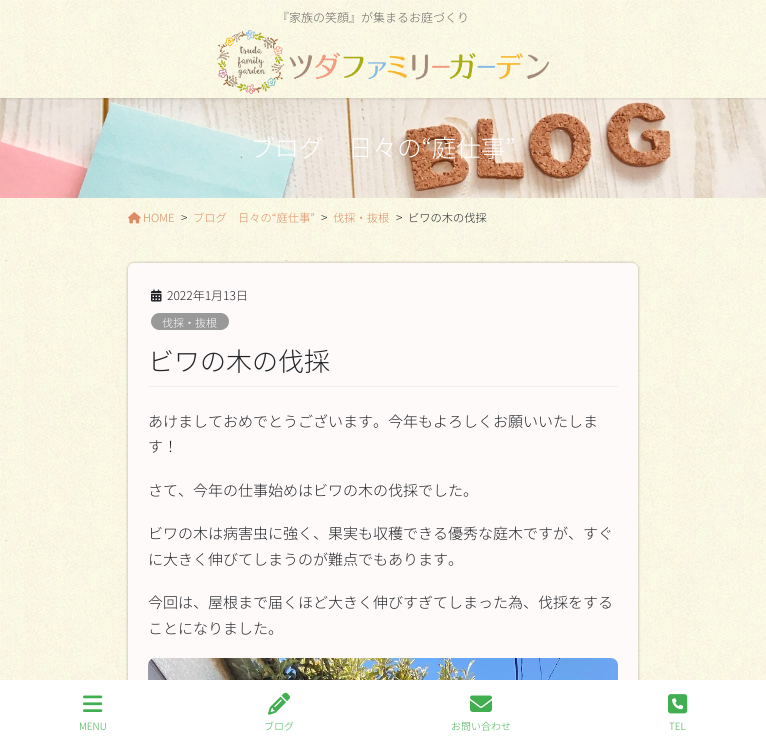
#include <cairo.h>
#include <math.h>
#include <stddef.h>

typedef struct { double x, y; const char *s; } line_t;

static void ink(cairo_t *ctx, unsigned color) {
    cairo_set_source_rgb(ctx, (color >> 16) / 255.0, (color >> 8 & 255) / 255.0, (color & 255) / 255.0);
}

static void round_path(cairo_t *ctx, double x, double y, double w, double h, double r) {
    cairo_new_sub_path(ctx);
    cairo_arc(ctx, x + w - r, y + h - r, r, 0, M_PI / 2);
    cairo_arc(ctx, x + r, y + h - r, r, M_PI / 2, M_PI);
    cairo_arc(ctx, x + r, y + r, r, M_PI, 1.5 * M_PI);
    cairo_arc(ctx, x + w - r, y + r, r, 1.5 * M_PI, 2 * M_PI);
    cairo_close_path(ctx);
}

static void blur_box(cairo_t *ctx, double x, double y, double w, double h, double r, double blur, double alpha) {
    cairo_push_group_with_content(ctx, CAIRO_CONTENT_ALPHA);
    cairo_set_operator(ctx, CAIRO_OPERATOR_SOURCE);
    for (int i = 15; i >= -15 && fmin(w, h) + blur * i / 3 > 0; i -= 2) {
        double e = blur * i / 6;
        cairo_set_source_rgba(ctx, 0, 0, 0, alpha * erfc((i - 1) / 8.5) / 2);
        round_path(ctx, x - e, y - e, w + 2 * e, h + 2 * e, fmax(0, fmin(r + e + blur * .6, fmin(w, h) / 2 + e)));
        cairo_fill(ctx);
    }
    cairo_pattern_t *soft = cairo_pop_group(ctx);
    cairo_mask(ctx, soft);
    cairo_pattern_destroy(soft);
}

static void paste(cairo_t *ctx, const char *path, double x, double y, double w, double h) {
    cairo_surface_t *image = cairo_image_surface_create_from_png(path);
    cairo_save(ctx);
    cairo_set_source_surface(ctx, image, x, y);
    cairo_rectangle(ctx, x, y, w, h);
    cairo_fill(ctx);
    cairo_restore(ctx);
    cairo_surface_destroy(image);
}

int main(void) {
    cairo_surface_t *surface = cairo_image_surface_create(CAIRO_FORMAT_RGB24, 766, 742);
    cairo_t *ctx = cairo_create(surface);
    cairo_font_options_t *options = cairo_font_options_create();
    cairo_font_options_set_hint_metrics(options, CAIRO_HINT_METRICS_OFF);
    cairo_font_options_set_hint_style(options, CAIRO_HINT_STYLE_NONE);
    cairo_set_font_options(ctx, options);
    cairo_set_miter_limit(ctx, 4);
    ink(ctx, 0xFFFFFF);
    cairo_paint(ctx);
    paste(ctx, "media/1.png", 0, 0, 766, 680);
    paste(ctx, "media/3.png", 0, 98, 766, 100);
    cairo_save(ctx);
    cairo_rectangle(ctx, 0, 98, 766, 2);
    cairo_clip(ctx);
    ink(ctx, 0x000000);
    blur_box(ctx, 0, -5, 766, 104, 0, 1.5, 0.1);
    cairo_restore(ctx);
    cairo_select_font_face(ctx, "Noto Sans JP Light", CAIRO_FONT_SLANT_NORMAL, CAIRO_FONT_WEIGHT_NORMAL);
    cairo_set_font_size(ctx, 12);
    ink(ctx, 0x666666);
    cairo_move_to(ctx, 277, 22);
    cairo_show_text(ctx, "『家族の笑顔』が集まるお庭づくり");
    paste(ctx, "media/2.png", 217, 30, 332, 64);
    cairo_set_font_size(ctx, 24.5);
    ink(ctx, 0xFFFFFF);
    cairo_move_to(ctx, 250, 157);
    cairo_show_text(ctx, "ブログ　日々の“庭仕事”");
    paste(ctx, "media/4.png", 128, 212, 13, 12);
    cairo_set_font_size(ctx, 11.25);
    ink(ctx, 0xDB8C64);
    cairo_move_to(ctx, 143, 222);
    cairo_show_text(ctx, "HOME");
    cairo_set_font_size(ctx, 12);
    ink(ctx, 0x212529);
    cairo_move_to(ctx, 181, 222);
    cairo_show_text(ctx, ">");
    cairo_set_font_size(ctx, 11.25);
    ink(ctx, 0xDB8C64);
    cairo_move_to(ctx, 193, 222);
    cairo_show_text(ctx, "ブログ　日々の“庭仕事”");
    cairo_set_font_size(ctx, 12);
    ink(ctx, 0x212529);
    cairo_move_to(ctx, 321, 222);
    cairo_show_text(ctx, ">");
    cairo_set_font_size(ctx, 11.25);
    ink(ctx, 0xDB8C64);
    cairo_move_to(ctx, 333, 222);
    cairo_show_text(ctx, "伐採・抜根");
    cairo_set_font_size(ctx, 12);
    ink(ctx, 0x212529);
    cairo_move_to(ctx, 396, 222);
    cairo_show_text(ctx, ">");
    cairo_set_font_size(ctx, 11.25);
    cairo_move_to(ctx, 408, 222);
    cairo_show_text(ctx, "ビワの木の伐採");
    ink(ctx, 0x000000);
    blur_box(ctx, 128, 263, 510, 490, 6, 1.5, 0.3);
    ink(ctx, 0xFFFAFA);
    round_path(ctx, 128, 263, 510, 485, 6);
    cairo_fill(ctx);
    ink(ctx, 0xF2EEEE);
    cairo_rectangle(ctx, 148, 386, 470, 1);
    cairo_fill(ctx);
    paste(ctx, "media/5.png", 151, 289, 11, 13);
    cairo_set_font_size(ctx, 12);
    ink(ctx, 0x212529);
    cairo_move_to(ctx, 167, 300);
    cairo_show_text(ctx, "2022年1月13日");
    ink(ctx, 0x999999);
    round_path(ctx, 151, 313, 78, 17, 8.5);
    cairo_fill(ctx);
    cairo_set_font_size(ctx, 11);
    ink(ctx, 0xFFFFFF);
    cairo_move_to(ctx, 162, 327);
    cairo_show_text(ctx, "伐採・抜根");
    cairo_set_font_size(ctx, 26);
    ink(ctx, 0x212529);
    cairo_move_to(ctx, 148, 371);
    cairo_show_text(ctx, "ビワの木の伐採");
    cairo_set_font_size(ctx, 15);
    {
        static const line_t items[] = {
            {148, 427, "あけましておめでとうございます。今年もよろしくお願いいたしま"},
            {148, 452, "す！"},
            {148, 496, "さて、今年の仕事始めはビワの木の伐採でした。"},
            {148, 539, "ビワの木は病害虫に強く、果実も収穫できる優秀な庭木ですが、すぐ"},
            {148, 565, "に大きく伸びてしまうのが難点でもあります。"},
            {148, 608, "今回は、屋根まで届くほど大きく伸びすぎてしまった為、伐採をする"},
            {148, 634, "ことになりました。"},
        };
        for (size_t i = 0; i < sizeof items / sizeof *items; i++) {
            cairo_move_to(ctx, items[i].x, items[i].y);
            cairo_show_text(ctx, items[i].s);
        }
    }
    paste(ctx, "media/6.png", 148, 658, 470, 22);
    ink(ctx, 0xFFFFFF);
    cairo_rectangle(ctx, 125, 680, 516, 62);
    cairo_fill(ctx);
    paste(ctx, "media/7.png", 83, 695, 20, 17);
    cairo_set_font_size(ctx, 10);
    ink(ctx, 0x41AE51);
    cairo_move_to(ctx, 79, 730);
    cairo_show_text(ctx, "MENU");
    paste(ctx, "media/8.png", 268, 692, 22, 23);
    cairo_move_to(ctx, 264, 730);
    cairo_show_text(ctx, "ブログ");
    paste(ctx, "media/9.png", 470, 695, 22, 17);
    cairo_move_to(ctx, 451, 730);
    cairo_show_text(ctx, "お問い合わせ");
    paste(ctx, "media/10.png", 668, 694, 20, 20);
    cairo_move_to(ctx, 669, 730);
    cairo_show_text(ctx, "TEL");
    cairo_surface_write_to_png(surface, "image.png");
    cairo_font_options_destroy(options);
    cairo_destroy(ctx);
    cairo_surface_destroy(surface);
    return 0;
}
